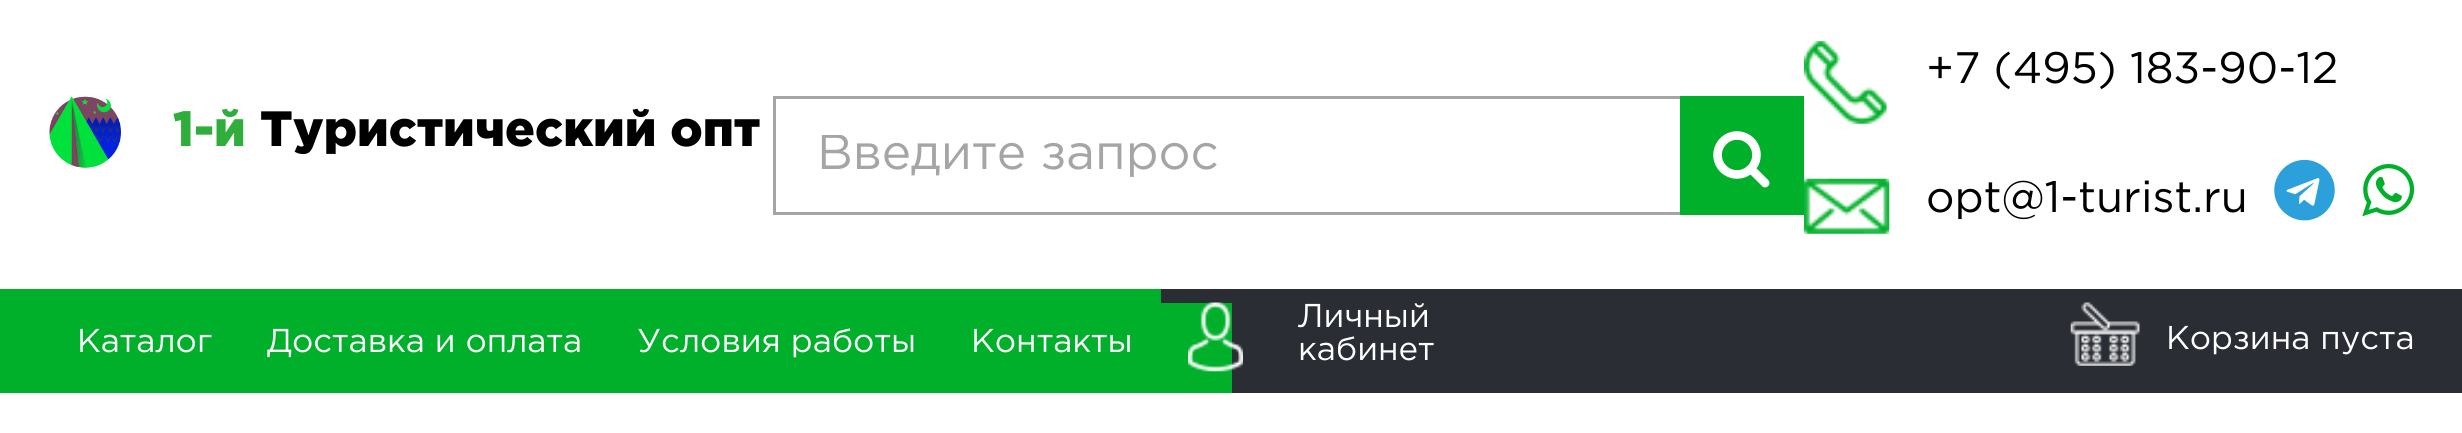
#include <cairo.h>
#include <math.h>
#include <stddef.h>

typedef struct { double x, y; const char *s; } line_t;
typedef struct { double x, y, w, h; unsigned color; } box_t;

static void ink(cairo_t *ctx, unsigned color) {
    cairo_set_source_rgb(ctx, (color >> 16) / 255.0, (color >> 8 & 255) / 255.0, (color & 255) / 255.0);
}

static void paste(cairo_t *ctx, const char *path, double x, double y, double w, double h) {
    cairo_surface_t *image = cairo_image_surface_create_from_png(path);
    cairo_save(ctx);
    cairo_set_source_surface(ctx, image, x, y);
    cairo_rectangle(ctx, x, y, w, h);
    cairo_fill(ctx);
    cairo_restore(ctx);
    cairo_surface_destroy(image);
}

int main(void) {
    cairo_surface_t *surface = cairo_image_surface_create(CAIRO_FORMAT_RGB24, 2462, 433);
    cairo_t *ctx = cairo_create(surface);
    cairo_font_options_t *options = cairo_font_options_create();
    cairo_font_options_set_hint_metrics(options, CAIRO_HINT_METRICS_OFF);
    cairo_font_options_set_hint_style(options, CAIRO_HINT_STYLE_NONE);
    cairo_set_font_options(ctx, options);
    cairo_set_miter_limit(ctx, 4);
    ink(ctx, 0xFFFFFF);
    cairo_paint(ctx);
    paste(ctx, "media/1.png", 49, 96, 72, 72);
    cairo_select_font_face(ctx, "Gotham Black", CAIRO_FONT_SLANT_NORMAL, CAIRO_FONT_WEIGHT_NORMAL);
    cairo_set_font_size(ctx, 49.5);
    ink(ctx, 0x2FAE3B);
    cairo_move_to(ctx, 173, 146);
    cairo_show_text(ctx, "1-й");
    ink(ctx, 0x000000);
    cairo_move_to(ctx, 260, 146);
    cairo_show_text(ctx, "Туристический опт");
    {
        static const box_t items[] = {
            {773, 96, 907, 3, 0xA5A5A5},
            {773, 212, 907, 3, 0xA5A5A5},
            {773, 96, 3, 119, 0xA5A5A5},
        };
        for (size_t i = 0; i < sizeof items / sizeof *items; i++) {
            ink(ctx, items[i].color);
            cairo_rectangle(ctx, items[i].x, items[i].y, items[i].w, items[i].h);
            cairo_fill(ctx);
        }
    }
    cairo_save(ctx);
    cairo_rectangle(ctx, 817, 135, 836, 47);
    cairo_clip(ctx);
    cairo_select_font_face(ctx, "Gotham", CAIRO_FONT_SLANT_NORMAL, CAIRO_FONT_WEIGHT_NORMAL);
    cairo_move_to(ctx, 817, 169);
    cairo_show_text(ctx, "Введите запрос");
    cairo_restore(ctx);
    ink(ctx, 0x00B02A);
    cairo_rectangle(ctx, 1680, 96, 124, 119);
    cairo_fill(ctx);
    paste(ctx, "media/2.png", 1713, 131, 57, 57);
    paste(ctx, "media/3.png", 1804, 41, 83, 83);
    cairo_select_font_face(ctx, "Gotham", CAIRO_FONT_SLANT_NORMAL, CAIRO_FONT_WEIGHT_NORMAL);
    cairo_set_font_size(ctx, 44);
    ink(ctx, 0x000000);
    cairo_move_to(ctx, 1926, 83);
    cairo_show_text(ctx, "+7 (495) 183-90-12");
    paste(ctx, "media/4.png", 1804, 178, 86, 56);
    cairo_move_to(ctx, 1926, 212);
    cairo_show_text(ctx, "opt@1-turist.ru");
    paste(ctx, "media/5.png", 2274, 159, 61, 62);
    paste(ctx, "media/6.png", 2362, 164, 53, 53);
    ink(ctx, 0x00B02A);
    cairo_rectangle(ctx, 0, 289, 1232, 104);
    cairo_fill(ctx);
    ink(ctx, 0x2A2D34);
    cairo_rectangle(ctx, 1232, 289, 1230, 104);
    cairo_fill(ctx);
    cairo_set_font_size(ctx, 33);
    ink(ctx, 0xFFFFFF);
    {
        static const line_t items[] = {
            {77, 352, "Каталог"},
            {267, 352, "Доставка и оплата"},
            {637, 352, "Условия работы"},
            {971, 352, "Контакты"},
        };
        for (size_t i = 0; i < sizeof items / sizeof *items; i++) {
            cairo_move_to(ctx, items[i].x, items[i].y);
            cairo_show_text(ctx, items[i].s);
        }
    }
    ink(ctx, 0x2A2D34);
    cairo_rectangle(ctx, 1161, 289, 71, 14);
    cairo_fill(ctx);
    paste(ctx, "media/7.png", 1188, 302, 55, 70);
    ink(ctx, 0xFFFFFF);
    cairo_move_to(ctx, 1298, 327);
    cairo_show_text(ctx, "Личный");
    cairo_move_to(ctx, 1298, 360);
    cairo_show_text(ctx, "кабинет");
    paste(ctx, "media/8.png", 2070, 302, 70, 64);
    cairo_move_to(ctx, 2166, 349);
    cairo_show_text(ctx, "Корзина пуста");
    cairo_surface_write_to_png(surface, "image.png");
    cairo_font_options_destroy(options);
    cairo_destroy(ctx);
    cairo_surface_destroy(surface);
    return 0;
}
